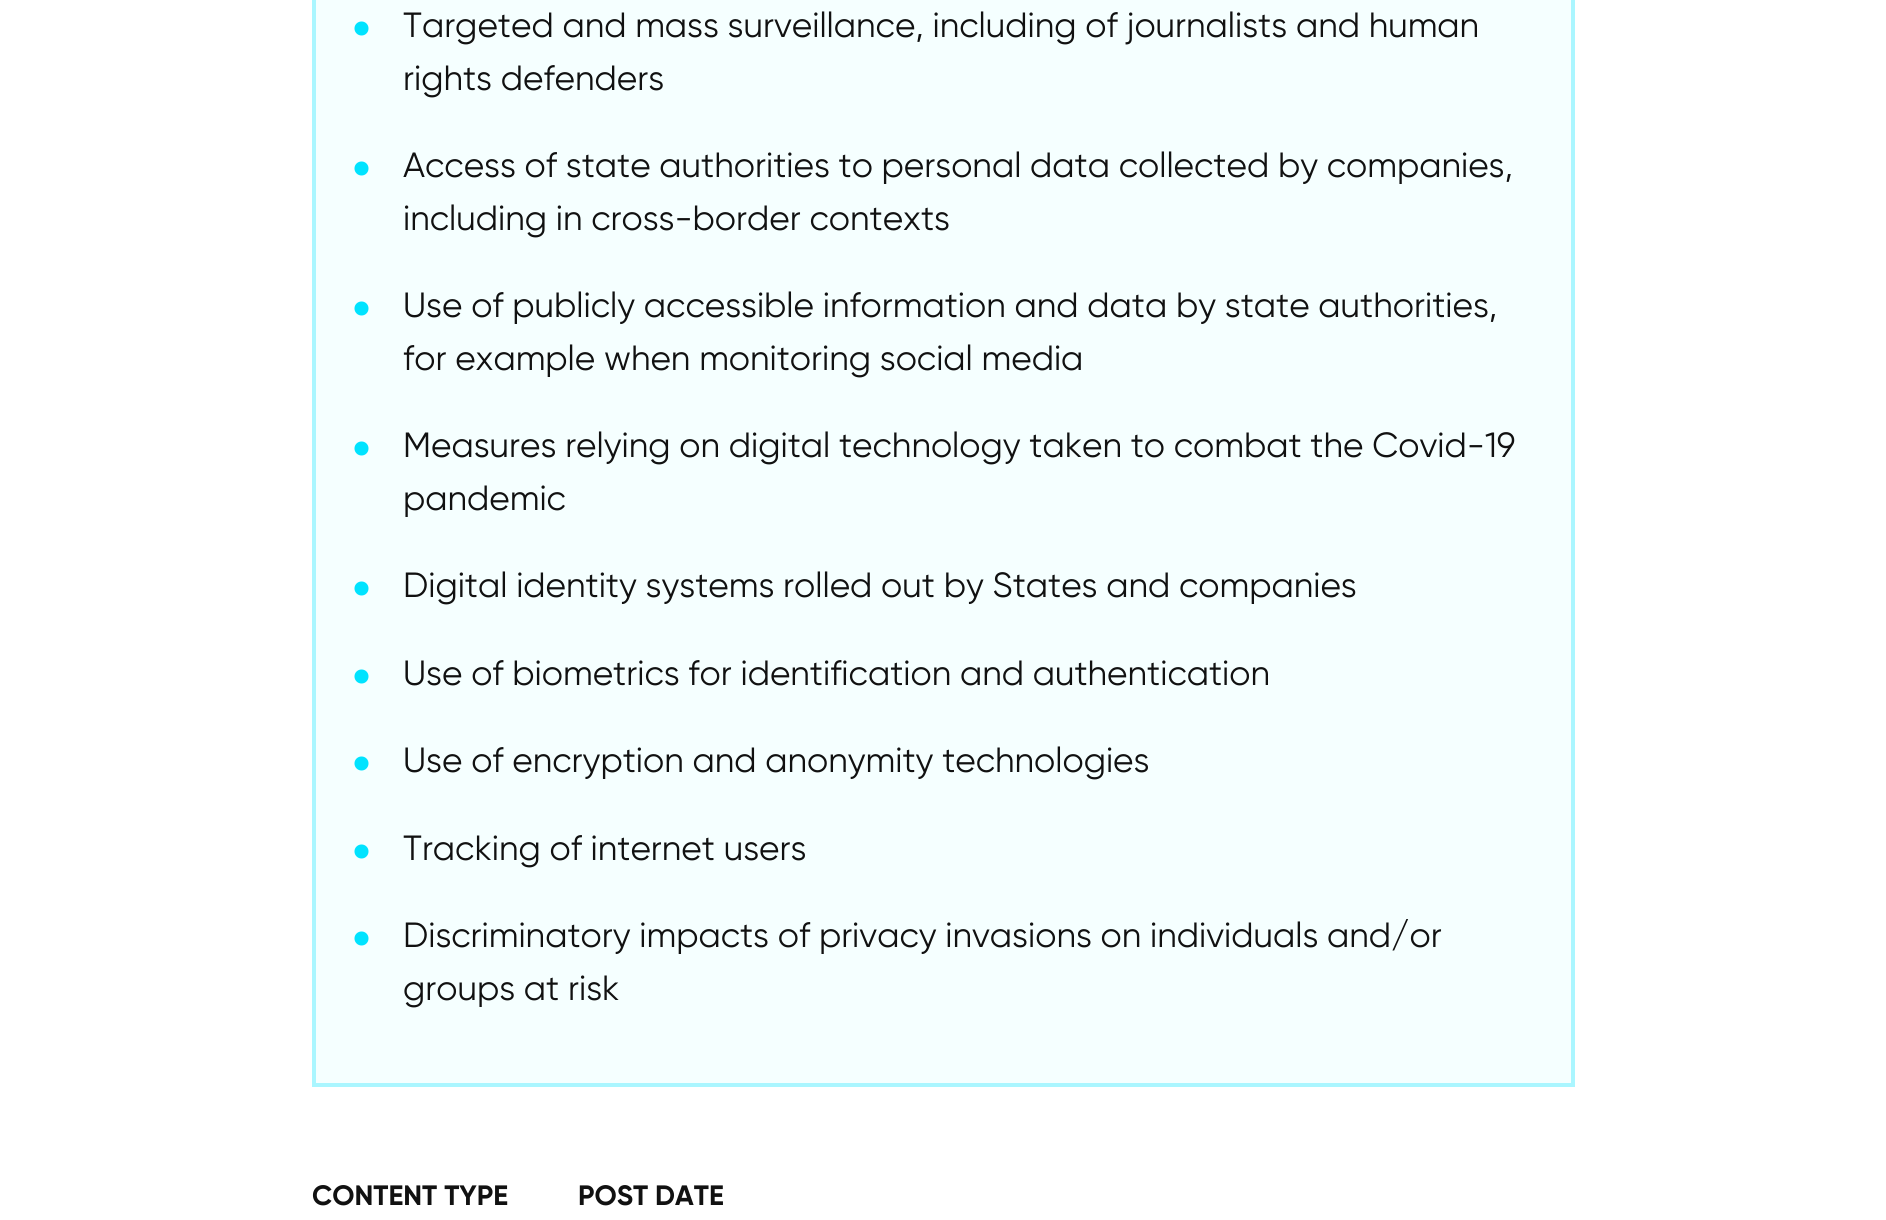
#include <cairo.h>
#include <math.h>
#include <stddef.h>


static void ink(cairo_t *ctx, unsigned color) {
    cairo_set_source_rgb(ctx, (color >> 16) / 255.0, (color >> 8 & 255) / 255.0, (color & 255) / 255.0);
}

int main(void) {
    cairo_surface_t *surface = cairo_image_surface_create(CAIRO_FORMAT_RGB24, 1886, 1220);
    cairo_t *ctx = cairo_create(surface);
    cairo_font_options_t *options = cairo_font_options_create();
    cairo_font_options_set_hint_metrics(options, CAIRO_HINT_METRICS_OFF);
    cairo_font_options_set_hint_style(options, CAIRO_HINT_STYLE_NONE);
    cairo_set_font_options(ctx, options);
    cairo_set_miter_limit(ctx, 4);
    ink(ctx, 0xFFFFFF);
    cairo_paint(ctx);
    ink(ctx, 0xF5FFFF);
    cairo_rectangle(ctx, 314, -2, 1259, 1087);
    cairo_fill_preserve(ctx);
    ink(ctx, 0xAAF6FF);
    cairo_set_line_width(ctx, 4);
    cairo_stroke(ctx);
    cairo_select_font_face(ctx, "gilroy", CAIRO_FONT_SLANT_NORMAL, CAIRO_FONT_WEIGHT_NORMAL);
    cairo_set_font_size(ctx, 70);
    ink(ctx, 0x00E3FF);
    cairo_move_to(ctx, 351, 53);
    cairo_show_text(ctx, "•");
    cairo_set_font_size(ctx, 35);
    ink(ctx, 0x111111);
    cairo_move_to(ctx, 403, 37);
    cairo_show_text(ctx, "Targeted and mass surveillance, including of journalists and human");
    cairo_move_to(ctx, 403, 90);
    cairo_show_text(ctx, "rights defenders");
    cairo_set_font_size(ctx, 70);
    ink(ctx, 0x00E3FF);
    cairo_move_to(ctx, 351, 193);
    cairo_show_text(ctx, "•");
    cairo_set_font_size(ctx, 35);
    ink(ctx, 0x111111);
    cairo_move_to(ctx, 403, 177);
    cairo_show_text(ctx, "Access of state authorities to personal data collected by companies,");
    cairo_move_to(ctx, 403, 230);
    cairo_show_text(ctx, "including in cross-border contexts");
    cairo_set_font_size(ctx, 70);
    ink(ctx, 0x00E3FF);
    cairo_move_to(ctx, 351, 333);
    cairo_show_text(ctx, "•");
    cairo_set_font_size(ctx, 35);
    ink(ctx, 0x111111);
    cairo_move_to(ctx, 403, 317);
    cairo_show_text(ctx, "Use of publicly accessible information and data by state authorities,");
    cairo_move_to(ctx, 403, 370);
    cairo_show_text(ctx, "for example when monitoring social media");
    cairo_set_font_size(ctx, 70);
    ink(ctx, 0x00E3FF);
    cairo_move_to(ctx, 351, 473);
    cairo_show_text(ctx, "•");
    cairo_set_font_size(ctx, 35);
    ink(ctx, 0x111111);
    cairo_move_to(ctx, 403, 457);
    cairo_show_text(ctx, "Measures relying on digital technology taken to combat the Covid-19");
    cairo_move_to(ctx, 403, 510);
    cairo_show_text(ctx, "pandemic");
    cairo_set_font_size(ctx, 70);
    ink(ctx, 0x00E3FF);
    cairo_move_to(ctx, 351, 613);
    cairo_show_text(ctx, "•");
    cairo_set_font_size(ctx, 35);
    ink(ctx, 0x111111);
    cairo_move_to(ctx, 403, 597);
    cairo_show_text(ctx, "Digital identity systems rolled out by States and companies");
    cairo_set_font_size(ctx, 70);
    ink(ctx, 0x00E3FF);
    cairo_move_to(ctx, 351, 701);
    cairo_show_text(ctx, "•");
    cairo_set_font_size(ctx, 35);
    ink(ctx, 0x111111);
    cairo_move_to(ctx, 403, 685);
    cairo_show_text(ctx, "Use of biometrics for identification and authentication");
    cairo_set_font_size(ctx, 70);
    ink(ctx, 0x00E3FF);
    cairo_move_to(ctx, 351, 788);
    cairo_show_text(ctx, "•");
    cairo_set_font_size(ctx, 35);
    ink(ctx, 0x111111);
    cairo_move_to(ctx, 403, 772);
    cairo_show_text(ctx, "Use of encryption and anonymity technologies");
    cairo_set_font_size(ctx, 70);
    ink(ctx, 0x00E3FF);
    cairo_move_to(ctx, 351, 876);
    cairo_show_text(ctx, "•");
    cairo_set_font_size(ctx, 35);
    ink(ctx, 0x111111);
    cairo_move_to(ctx, 403, 860);
    cairo_show_text(ctx, "Tracking of internet users");
    cairo_set_font_size(ctx, 70);
    ink(ctx, 0x00E3FF);
    cairo_move_to(ctx, 351, 963);
    cairo_show_text(ctx, "•");
    cairo_set_font_size(ctx, 35);
    ink(ctx, 0x111111);
    cairo_move_to(ctx, 403, 947);
    cairo_show_text(ctx, "Discriminatory impacts of privacy invasions on individuals and/or");
    cairo_move_to(ctx, 403, 1000);
    cairo_show_text(ctx, "groups at risk");
    cairo_select_font_face(ctx, "Gilroy", CAIRO_FONT_SLANT_NORMAL, CAIRO_FONT_WEIGHT_BOLD);
    cairo_set_font_size(ctx, 28);
    cairo_move_to(ctx, 312, 1205);
    cairo_show_text(ctx, "CONTENT TYPE");
    cairo_move_to(ctx, 578, 1205);
    cairo_show_text(ctx, "POST DATE");
    cairo_surface_write_to_png(surface, "image.png");
    cairo_font_options_destroy(options);
    cairo_destroy(ctx);
    cairo_surface_destroy(surface);
    return 0;
}
